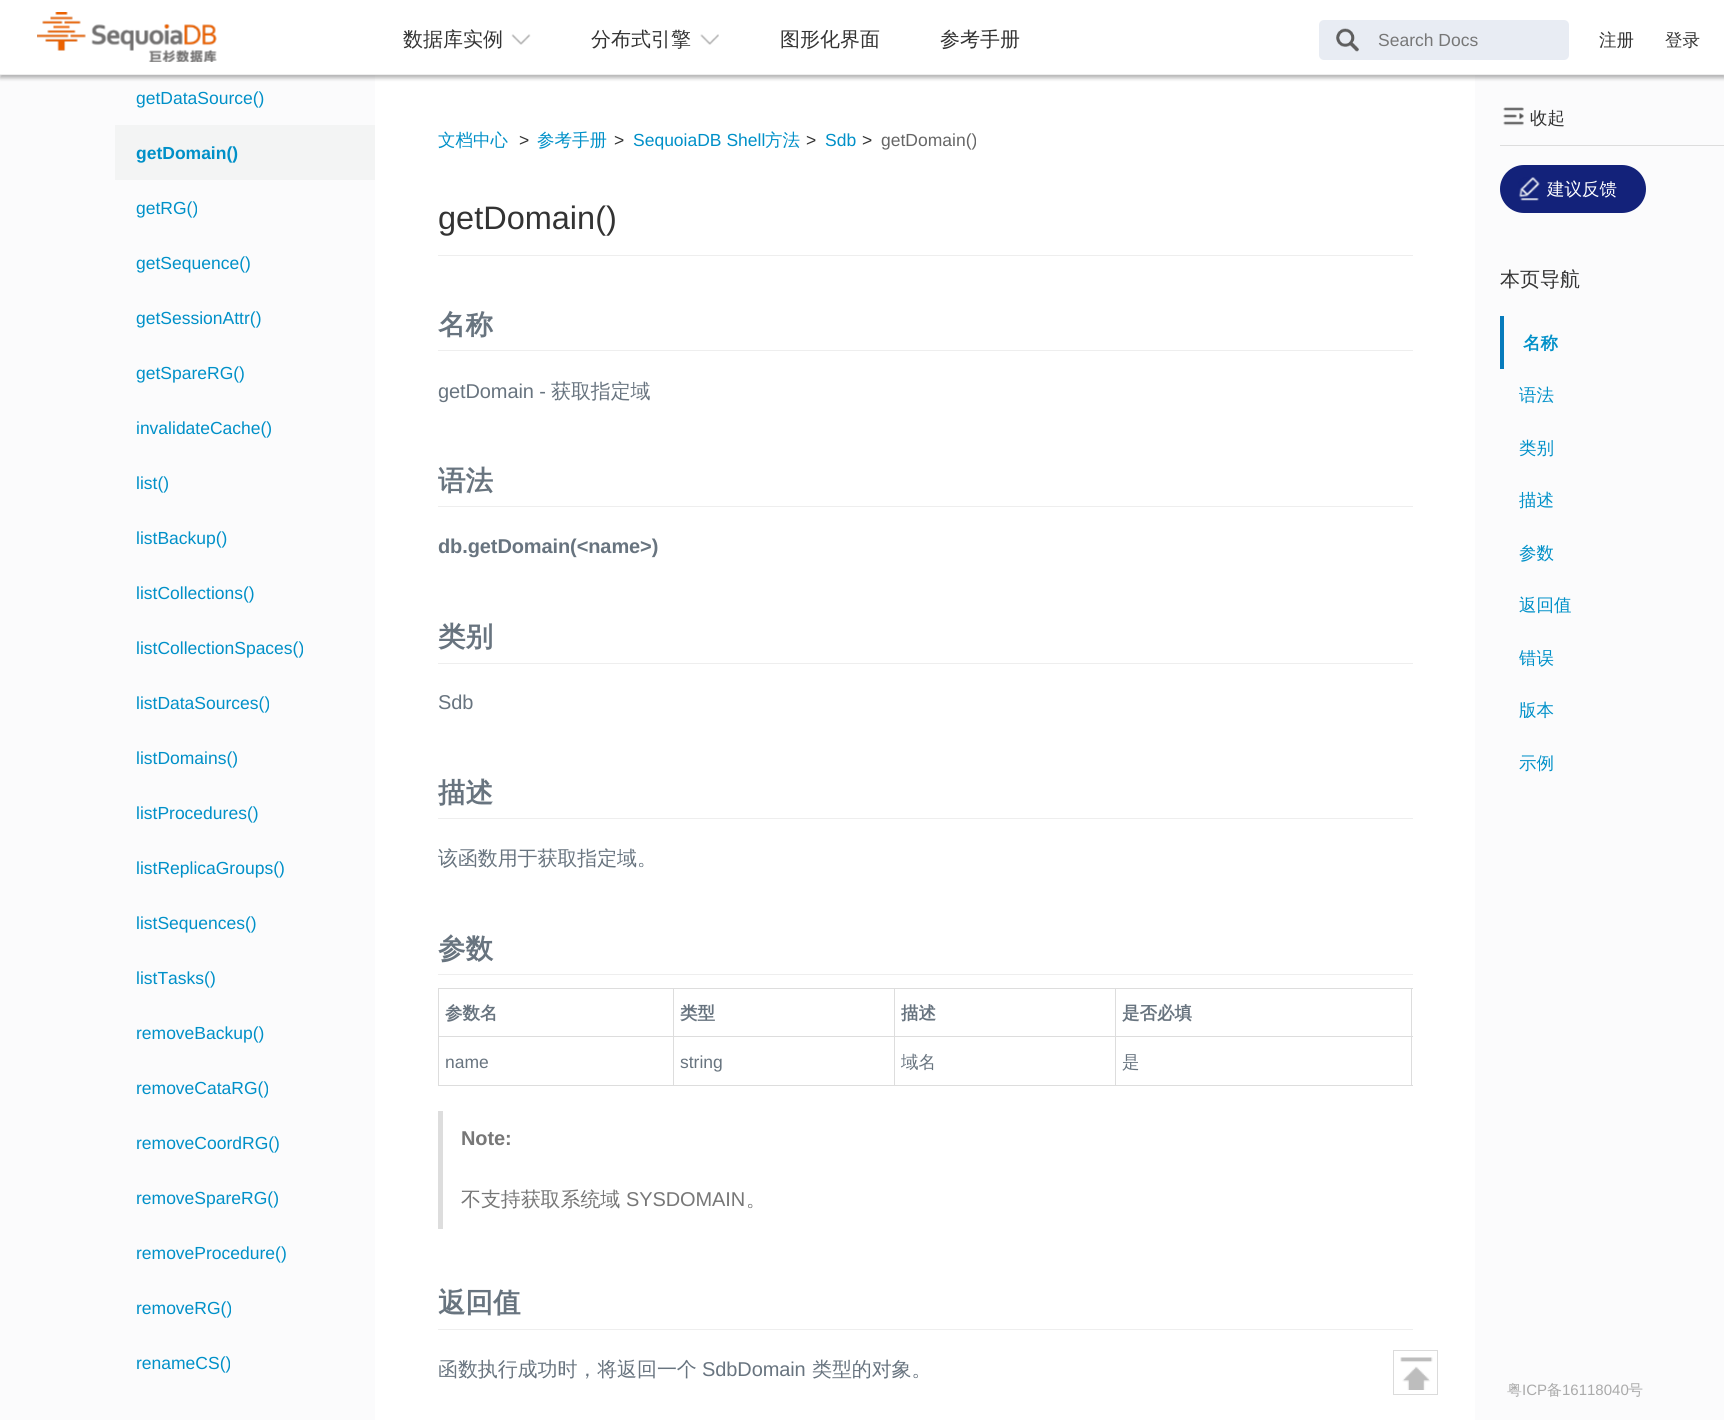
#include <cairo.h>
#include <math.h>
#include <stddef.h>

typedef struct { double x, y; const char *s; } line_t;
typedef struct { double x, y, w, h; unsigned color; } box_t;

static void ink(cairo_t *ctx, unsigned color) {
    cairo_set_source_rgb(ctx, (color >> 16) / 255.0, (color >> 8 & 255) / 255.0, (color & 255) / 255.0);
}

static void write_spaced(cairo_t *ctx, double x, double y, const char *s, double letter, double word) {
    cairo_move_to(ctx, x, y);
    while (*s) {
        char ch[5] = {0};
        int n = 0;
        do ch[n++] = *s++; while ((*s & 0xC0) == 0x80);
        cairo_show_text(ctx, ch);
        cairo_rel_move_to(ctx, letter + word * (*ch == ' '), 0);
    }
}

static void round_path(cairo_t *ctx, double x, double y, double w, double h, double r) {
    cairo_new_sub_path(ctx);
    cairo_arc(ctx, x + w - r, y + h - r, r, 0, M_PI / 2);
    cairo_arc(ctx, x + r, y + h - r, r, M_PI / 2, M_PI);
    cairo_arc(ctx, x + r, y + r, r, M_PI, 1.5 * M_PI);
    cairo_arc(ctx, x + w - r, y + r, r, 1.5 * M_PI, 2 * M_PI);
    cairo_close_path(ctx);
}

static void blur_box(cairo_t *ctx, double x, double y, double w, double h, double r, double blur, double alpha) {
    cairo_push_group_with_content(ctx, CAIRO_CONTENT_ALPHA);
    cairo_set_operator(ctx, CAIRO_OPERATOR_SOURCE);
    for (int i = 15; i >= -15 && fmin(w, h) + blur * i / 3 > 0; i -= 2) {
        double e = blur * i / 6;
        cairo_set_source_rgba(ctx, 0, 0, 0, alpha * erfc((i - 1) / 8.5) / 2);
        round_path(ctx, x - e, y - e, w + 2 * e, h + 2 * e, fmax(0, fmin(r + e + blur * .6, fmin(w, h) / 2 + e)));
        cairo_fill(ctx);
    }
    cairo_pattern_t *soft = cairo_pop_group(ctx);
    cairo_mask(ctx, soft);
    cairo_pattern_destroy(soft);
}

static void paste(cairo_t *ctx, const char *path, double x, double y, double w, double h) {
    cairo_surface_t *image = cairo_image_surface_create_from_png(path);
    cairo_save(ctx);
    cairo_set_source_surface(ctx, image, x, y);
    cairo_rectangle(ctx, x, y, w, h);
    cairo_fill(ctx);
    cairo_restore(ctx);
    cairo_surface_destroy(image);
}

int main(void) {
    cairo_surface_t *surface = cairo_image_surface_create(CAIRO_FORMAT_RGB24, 1724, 1420);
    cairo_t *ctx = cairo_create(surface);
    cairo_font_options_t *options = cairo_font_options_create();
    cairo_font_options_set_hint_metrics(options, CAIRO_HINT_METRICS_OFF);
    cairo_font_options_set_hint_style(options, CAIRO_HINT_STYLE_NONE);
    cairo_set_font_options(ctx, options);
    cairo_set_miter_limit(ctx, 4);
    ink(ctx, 0xFFFFFF);
    cairo_paint(ctx);
    ink(ctx, 0xFBFBFC);
    cairo_rectangle(ctx, 0, 75, 375, 1345);
    cairo_fill(ctx);
    cairo_rectangle(ctx, 1475, 75, 249, 1345);
    cairo_fill(ctx);
    ink(ctx, 0x000000);
    blur_box(ctx, 0, 3, 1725, 75, 0, 2, 0.3);
    ink(ctx, 0xFFFFFF);
    cairo_rectangle(ctx, 0, 0, 1724, 74);
    cairo_fill(ctx);
    ink(ctx, 0xEEEEEE);
    cairo_rectangle(ctx, 0, 74, 1724, 1);
    cairo_fill(ctx);
    paste(ctx, "media/1.png", 37, 12, 180, 50);
    cairo_select_font_face(ctx, "WenQuanYi Zen Hei Medium", CAIRO_FONT_SLANT_NORMAL, CAIRO_FONT_WEIGHT_NORMAL);
    cairo_set_font_size(ctx, 20);
    ink(ctx, 0x333333);
    cairo_move_to(ctx, 403, 46);
    cairo_show_text(ctx, "数据库实例");
    paste(ctx, "media/2.png", 511, 34, 20, 11);
    cairo_move_to(ctx, 591, 46);
    cairo_show_text(ctx, "分布式引擎");
    paste(ctx, "media/3.png", 700, 34, 19, 11);
    cairo_move_to(ctx, 780, 46);
    cairo_show_text(ctx, "图形化界面");
    cairo_move_to(ctx, 940, 46);
    cairo_show_text(ctx, "参考手册");
    ink(ctx, 0xE8ECF3);
    round_path(ctx, 1319, 20, 250, 40, 5);
    cairo_fill(ctx);
    paste(ctx, "media/4.png", 1336, 28, 23, 24);
    cairo_select_font_face(ctx, "Liberation Sans", CAIRO_FONT_SLANT_NORMAL, CAIRO_FONT_WEIGHT_NORMAL);
    cairo_set_font_size(ctx, 17.5);
    ink(ctx, 0x777777);
    cairo_move_to(ctx, 1378, 46);
    cairo_show_text(ctx, "Search Docs");
    cairo_select_font_face(ctx, "WenQuanYi Zen Hei Medium", CAIRO_FONT_SLANT_NORMAL, CAIRO_FONT_WEIGHT_NORMAL);
    ink(ctx, 0x333333);
    cairo_move_to(ctx, 1599, 46);
    cairo_show_text(ctx, "注册");
    cairo_move_to(ctx, 1665, 46);
    cairo_show_text(ctx, "登录");
    cairo_select_font_face(ctx, "Liberation Sans", CAIRO_FONT_SLANT_NORMAL, CAIRO_FONT_WEIGHT_NORMAL);
    ink(ctx, 0x0090C8);
    cairo_move_to(ctx, 136, 104);
    cairo_show_text(ctx, "getDataSource()");
    ink(ctx, 0xF3F4F4);
    cairo_rectangle(ctx, 115, 125, 260, 55);
    cairo_fill(ctx);
    cairo_select_font_face(ctx, "Liberation Sans", CAIRO_FONT_SLANT_NORMAL, CAIRO_FONT_WEIGHT_BOLD);
    ink(ctx, 0x0090C8);
    cairo_move_to(ctx, 136, 159);
    cairo_show_text(ctx, "getDomain()");
    cairo_select_font_face(ctx, "Liberation Sans", CAIRO_FONT_SLANT_NORMAL, CAIRO_FONT_WEIGHT_NORMAL);
    {
        static const line_t items[] = {
            {136, 214, "getRG()"},
            {136, 269, "getSequence()"},
            {136, 324, "getSessionAttr()"},
            {136, 379, "getSpareRG()"},
            {136, 434, "invalidateCache()"},
            {136, 489, "list()"},
            {136, 544, "listBackup()"},
            {136, 599, "listCollections()"},
            {136, 654, "listCollectionSpaces()"},
            {136, 709, "listDataSources()"},
            {136, 764, "listDomains()"},
            {136, 819, "listProcedures()"},
            {136, 874, "listReplicaGroups()"},
            {136, 929, "listSequences()"},
            {136, 984, "listTasks()"},
            {136, 1039, "removeBackup()"},
            {136, 1094, "removeCataRG()"},
            {136, 1149, "removeCoordRG()"},
            {136, 1204, "removeSpareRG()"},
            {136, 1259, "removeProcedure()"},
            {136, 1314, "removeRG()"},
            {136, 1369, "renameCS()"},
        };
        for (size_t i = 0; i < sizeof items / sizeof *items; i++) {
            cairo_move_to(ctx, items[i].x, items[i].y);
            cairo_show_text(ctx, items[i].s);
        }
    }
    cairo_select_font_face(ctx, "WenQuanYi Zen Hei Medium", CAIRO_FONT_SLANT_NORMAL, CAIRO_FONT_WEIGHT_NORMAL);
    cairo_move_to(ctx, 438, 146);
    cairo_show_text(ctx, "文档中心");
    cairo_select_font_face(ctx, "Liberation Sans", CAIRO_FONT_SLANT_NORMAL, CAIRO_FONT_WEIGHT_NORMAL);
    ink(ctx, 0x333333);
    cairo_move_to(ctx, 519, 146);
    cairo_show_text(ctx, ">");
    cairo_select_font_face(ctx, "WenQuanYi Zen Hei Medium", CAIRO_FONT_SLANT_NORMAL, CAIRO_FONT_WEIGHT_NORMAL);
    ink(ctx, 0x0090C8);
    cairo_move_to(ctx, 537, 146);
    cairo_show_text(ctx, "参考手册");
    cairo_select_font_face(ctx, "Liberation Sans", CAIRO_FONT_SLANT_NORMAL, CAIRO_FONT_WEIGHT_NORMAL);
    ink(ctx, 0x333333);
    cairo_move_to(ctx, 614, 146);
    cairo_show_text(ctx, ">");
    ink(ctx, 0x0090C8);
    cairo_move_to(ctx, 633, 146);
    cairo_show_text(ctx, "SequoiaDB Shell");
    cairo_select_font_face(ctx, "WenQuanYi Zen Hei Medium", CAIRO_FONT_SLANT_NORMAL, CAIRO_FONT_WEIGHT_NORMAL);
    cairo_move_to(ctx, 765, 146);
    cairo_show_text(ctx, "方法");
    cairo_select_font_face(ctx, "Liberation Sans", CAIRO_FONT_SLANT_NORMAL, CAIRO_FONT_WEIGHT_NORMAL);
    ink(ctx, 0x333333);
    cairo_move_to(ctx, 806, 146);
    cairo_show_text(ctx, ">");
    ink(ctx, 0x0090C8);
    cairo_move_to(ctx, 825, 146);
    cairo_show_text(ctx, "Sdb");
    ink(ctx, 0x333333);
    cairo_move_to(ctx, 862, 146);
    cairo_show_text(ctx, ">");
    ink(ctx, 0x666666);
    cairo_move_to(ctx, 881, 146);
    cairo_show_text(ctx, "getDomain()");
    ink(ctx, 0xEEEEEE);
    cairo_rectangle(ctx, 438, 255, 975, 1);
    cairo_fill(ctx);
    cairo_set_font_size(ctx, 32.5);
    ink(ctx, 0x333333);
    cairo_move_to(ctx, 438, 229);
    cairo_show_text(ctx, "getDomain()");
    ink(ctx, 0xEEEEEE);
    cairo_rectangle(ctx, 438, 350, 975, 1);
    cairo_fill(ctx);
    cairo_select_font_face(ctx, "WenQuanYi Zen Hei", CAIRO_FONT_SLANT_NORMAL, CAIRO_FONT_WEIGHT_BOLD);
    cairo_set_font_size(ctx, 27.5);
    ink(ctx, 0x68747F);
    cairo_move_to(ctx, 438, 334);
    cairo_show_text(ctx, "名称");
    cairo_select_font_face(ctx, "Liberation Sans", CAIRO_FONT_SLANT_NORMAL, CAIRO_FONT_WEIGHT_NORMAL);
    cairo_set_font_size(ctx, 20);
    write_spaced(ctx, 438, 398, "getDomain -", -0.1, 0);
    cairo_select_font_face(ctx, "WenQuanYi Zen Hei Medium", CAIRO_FONT_SLANT_NORMAL, CAIRO_FONT_WEIGHT_NORMAL);
    write_spaced(ctx, 551, 398, "获取指定域", -0.1, 0);
    ink(ctx, 0xEEEEEE);
    cairo_rectangle(ctx, 438, 506, 975, 1);
    cairo_fill(ctx);
    cairo_select_font_face(ctx, "WenQuanYi Zen Hei", CAIRO_FONT_SLANT_NORMAL, CAIRO_FONT_WEIGHT_BOLD);
    cairo_set_font_size(ctx, 27.5);
    ink(ctx, 0x68747F);
    cairo_move_to(ctx, 438, 490);
    cairo_show_text(ctx, "语法");
    cairo_select_font_face(ctx, "Liberation Sans", CAIRO_FONT_SLANT_NORMAL, CAIRO_FONT_WEIGHT_BOLD);
    cairo_set_font_size(ctx, 20);
    write_spaced(ctx, 438, 553, "db.getDomain(<name>)", -0.1, 0);
    ink(ctx, 0xEEEEEE);
    cairo_rectangle(ctx, 438, 663, 975, 1);
    cairo_fill(ctx);
    cairo_select_font_face(ctx, "WenQuanYi Zen Hei", CAIRO_FONT_SLANT_NORMAL, CAIRO_FONT_WEIGHT_BOLD);
    cairo_set_font_size(ctx, 27.5);
    ink(ctx, 0x68747F);
    cairo_move_to(ctx, 438, 646);
    cairo_show_text(ctx, "类别");
    cairo_select_font_face(ctx, "Liberation Sans", CAIRO_FONT_SLANT_NORMAL, CAIRO_FONT_WEIGHT_NORMAL);
    cairo_set_font_size(ctx, 20);
    write_spaced(ctx, 438, 709, "Sdb", -0.1, 0);
    ink(ctx, 0xEEEEEE);
    cairo_rectangle(ctx, 438, 818, 975, 1);
    cairo_fill(ctx);
    cairo_select_font_face(ctx, "WenQuanYi Zen Hei", CAIRO_FONT_SLANT_NORMAL, CAIRO_FONT_WEIGHT_BOLD);
    cairo_set_font_size(ctx, 27.5);
    ink(ctx, 0x68747F);
    cairo_move_to(ctx, 438, 802);
    cairo_show_text(ctx, "描述");
    cairo_select_font_face(ctx, "WenQuanYi Zen Hei Medium", CAIRO_FONT_SLANT_NORMAL, CAIRO_FONT_WEIGHT_NORMAL);
    cairo_set_font_size(ctx, 20);
    write_spaced(ctx, 438, 865, "该函数用于获取指定域。", -0.1, 0);
    ink(ctx, 0xEEEEEE);
    cairo_rectangle(ctx, 438, 974, 975, 1);
    cairo_fill(ctx);
    cairo_select_font_face(ctx, "WenQuanYi Zen Hei", CAIRO_FONT_SLANT_NORMAL, CAIRO_FONT_WEIGHT_BOLD);
    cairo_set_font_size(ctx, 27.5);
    ink(ctx, 0x68747F);
    cairo_move_to(ctx, 438, 958);
    cairo_show_text(ctx, "参数");
    {
        static const box_t items[] = {
            {438, 988, 975, 1, 0xDDDDDD},
            {1411, 988, 1, 98, 0xDDDDDD},
            {438, 1085, 975, 1, 0xDDDDDD},
            {438, 988, 1, 98, 0xDDDDDD},
        };
        for (size_t i = 0; i < sizeof items / sizeof *items; i++) {
            ink(ctx, items[i].color);
            cairo_rectangle(ctx, items[i].x, items[i].y, items[i].w, items[i].h);
            cairo_fill(ctx);
        }
    }
    cairo_set_font_size(ctx, 17.5);
    ink(ctx, 0x68747F);
    cairo_move_to(ctx, 445, 1019);
    cairo_show_text(ctx, "参数名");
    {
        static const box_t items[] = {
            {1115, 1036, 298, 1, 0xDDDDDD},
            {1115, 1036, 1, 50, 0xDDDDDD},
            {894, 1036, 222, 1, 0xDDDDDD},
            {894, 1036, 1, 50, 0xDDDDDD},
            {673, 1036, 222, 1, 0xDDDDDD},
            {673, 1036, 1, 50, 0xDDDDDD},
            {438, 1036, 236, 1, 0xDDDDDD},
            {673, 988, 1, 50, 0xDDDDDD},
        };
        for (size_t i = 0; i < sizeof items / sizeof *items; i++) {
            ink(ctx, items[i].color);
            cairo_rectangle(ctx, items[i].x, items[i].y, items[i].w, items[i].h);
            cairo_fill(ctx);
        }
    }
    ink(ctx, 0x68747F);
    cairo_move_to(ctx, 680, 1019);
    cairo_show_text(ctx, "类型");
    ink(ctx, 0xDDDDDD);
    cairo_rectangle(ctx, 894, 988, 1, 50);
    cairo_fill(ctx);
    ink(ctx, 0x68747F);
    cairo_move_to(ctx, 901, 1019);
    cairo_show_text(ctx, "描述");
    ink(ctx, 0xDDDDDD);
    cairo_rectangle(ctx, 1115, 988, 1, 50);
    cairo_fill(ctx);
    ink(ctx, 0x68747F);
    cairo_move_to(ctx, 1122, 1019);
    cairo_show_text(ctx, "是否必填");
    cairo_select_font_face(ctx, "Liberation Sans", CAIRO_FONT_SLANT_NORMAL, CAIRO_FONT_WEIGHT_NORMAL);
    cairo_move_to(ctx, 445, 1068);
    cairo_show_text(ctx, "name");
    cairo_move_to(ctx, 680, 1068);
    cairo_show_text(ctx, "string");
    cairo_select_font_face(ctx, "WenQuanYi Zen Hei Medium", CAIRO_FONT_SLANT_NORMAL, CAIRO_FONT_WEIGHT_NORMAL);
    cairo_move_to(ctx, 901, 1068);
    cairo_show_text(ctx, "域名");
    cairo_move_to(ctx, 1122, 1068);
    cairo_show_text(ctx, "是");
    ink(ctx, 0xDDDDDD);
    cairo_rectangle(ctx, 438, 1111, 5, 118);
    cairo_fill(ctx);
    cairo_select_font_face(ctx, "Liberation Sans", CAIRO_FONT_SLANT_NORMAL, CAIRO_FONT_WEIGHT_BOLD);
    cairo_set_font_size(ctx, 20);
    ink(ctx, 0x777777);
    write_spaced(ctx, 461, 1145, "Note:", -0.1, 0);
    cairo_select_font_face(ctx, "WenQuanYi Zen Hei Medium", CAIRO_FONT_SLANT_NORMAL, CAIRO_FONT_WEIGHT_NORMAL);
    write_spaced(ctx, 461, 1206, "不支持获取系统域", -0.1, 0);
    cairo_select_font_face(ctx, "Liberation Sans", CAIRO_FONT_SLANT_NORMAL, CAIRO_FONT_WEIGHT_NORMAL);
    write_spaced(ctx, 626, 1206, "SYSDOMAIN", -0.1, 0);
    cairo_select_font_face(ctx, "WenQuanYi Zen Hei Medium", CAIRO_FONT_SLANT_NORMAL, CAIRO_FONT_WEIGHT_NORMAL);
    write_spaced(ctx, 746, 1206, "。", -0.1, 0);
    ink(ctx, 0xEEEEEE);
    cairo_rectangle(ctx, 438, 1329, 975, 1);
    cairo_fill(ctx);
    cairo_select_font_face(ctx, "WenQuanYi Zen Hei", CAIRO_FONT_SLANT_NORMAL, CAIRO_FONT_WEIGHT_BOLD);
    cairo_set_font_size(ctx, 27.5);
    ink(ctx, 0x68747F);
    cairo_move_to(ctx, 438, 1312);
    cairo_show_text(ctx, "返回值");
    cairo_select_font_face(ctx, "WenQuanYi Zen Hei Medium", CAIRO_FONT_SLANT_NORMAL, CAIRO_FONT_WEIGHT_NORMAL);
    cairo_set_font_size(ctx, 20);
    write_spaced(ctx, 438, 1376, "函数执行成功时，将返回一个", -0.1, 0);
    cairo_select_font_face(ctx, "Liberation Sans", CAIRO_FONT_SLANT_NORMAL, CAIRO_FONT_WEIGHT_NORMAL);
    write_spaced(ctx, 702, 1376, "SdbDomain", -0.1, 0);
    cairo_select_font_face(ctx, "WenQuanYi Zen Hei Medium", CAIRO_FONT_SLANT_NORMAL, CAIRO_FONT_WEIGHT_NORMAL);
    write_spaced(ctx, 812, 1376, "类型的对象。", -0.1, 0);
    paste(ctx, "media/5.png", 1503, 107, 21, 19);
    cairo_set_font_size(ctx, 17.5);
    ink(ctx, 0x333333);
    cairo_move_to(ctx, 1530, 124);
    cairo_show_text(ctx, "收起");
    ink(ctx, 0xDDDDDD);
    cairo_rectangle(ctx, 1500, 145, 224, 1);
    cairo_fill(ctx);
    ink(ctx, 0x13227A);
    round_path(ctx, 1500, 165, 146, 48, 24);
    cairo_fill(ctx);
    paste(ctx, "media/6.png", 1518, 177, 22, 24);
    ink(ctx, 0xFFFFFF);
    cairo_move_to(ctx, 1547, 195);
    cairo_show_text(ctx, "建议反馈");
    cairo_set_font_size(ctx, 20);
    ink(ctx, 0x333333);
    cairo_move_to(ctx, 1500, 286);
    cairo_show_text(ctx, "本页导航");
    ink(ctx, 0x077BBC);
    cairo_rectangle(ctx, 1500, 316, 4, 53);
    cairo_fill(ctx);
    cairo_select_font_face(ctx, "WenQuanYi Zen Hei", CAIRO_FONT_SLANT_NORMAL, CAIRO_FONT_WEIGHT_BOLD);
    cairo_set_font_size(ctx, 17.5);
    ink(ctx, 0x0090C8);
    cairo_move_to(ctx, 1523, 349);
    cairo_show_text(ctx, "名称");
    cairo_select_font_face(ctx, "WenQuanYi Zen Hei Medium", CAIRO_FONT_SLANT_NORMAL, CAIRO_FONT_WEIGHT_NORMAL);
    {
        static const line_t items[] = {
            {1519, 401, "语法"},
            {1519, 454, "类别"},
            {1519, 506, "描述"},
            {1519, 559, "参数"},
            {1519, 611, "返回值"},
            {1519, 664, "错误"},
            {1519, 716, "版本"},
            {1519, 769, "示例"},
        };
        for (size_t i = 0; i < sizeof items / sizeof *items; i++) {
            cairo_move_to(ctx, items[i].x, items[i].y);
            cairo_show_text(ctx, items[i].s);
        }
    }
    cairo_set_font_size(ctx, 15);
    ink(ctx, 0xAAAAAA);
    cairo_move_to(ctx, 1507, 1395);
    cairo_show_text(ctx, "粤");
    cairo_select_font_face(ctx, "Liberation Sans", CAIRO_FONT_SLANT_NORMAL, CAIRO_FONT_WEIGHT_NORMAL);
    cairo_move_to(ctx, 1522, 1395);
    cairo_show_text(ctx, "ICP");
    cairo_select_font_face(ctx, "WenQuanYi Zen Hei Medium", CAIRO_FONT_SLANT_NORMAL, CAIRO_FONT_WEIGHT_NORMAL);
    cairo_move_to(ctx, 1547, 1395);
    cairo_show_text(ctx, "备");
    cairo_select_font_face(ctx, "Liberation Sans", CAIRO_FONT_SLANT_NORMAL, CAIRO_FONT_WEIGHT_NORMAL);
    cairo_move_to(ctx, 1562, 1395);
    cairo_show_text(ctx, "16118040");
    cairo_select_font_face(ctx, "WenQuanYi Zen Hei Medium", CAIRO_FONT_SLANT_NORMAL, CAIRO_FONT_WEIGHT_NORMAL);
    cairo_move_to(ctx, 1628, 1395);
    cairo_show_text(ctx, "号");
    cairo_rectangle(ctx, 1393.5, 1350.5, 44, 44);
    ink(ctx, 0xDBDBDB);
    cairo_set_line_width(ctx, 1);
    cairo_stroke(ctx);
    paste(ctx, "media/7.png", 1400, 1357, 33, 33);
    cairo_surface_write_to_png(surface, "image.png");
    cairo_font_options_destroy(options);
    cairo_destroy(ctx);
    cairo_surface_destroy(surface);
    return 0;
}
